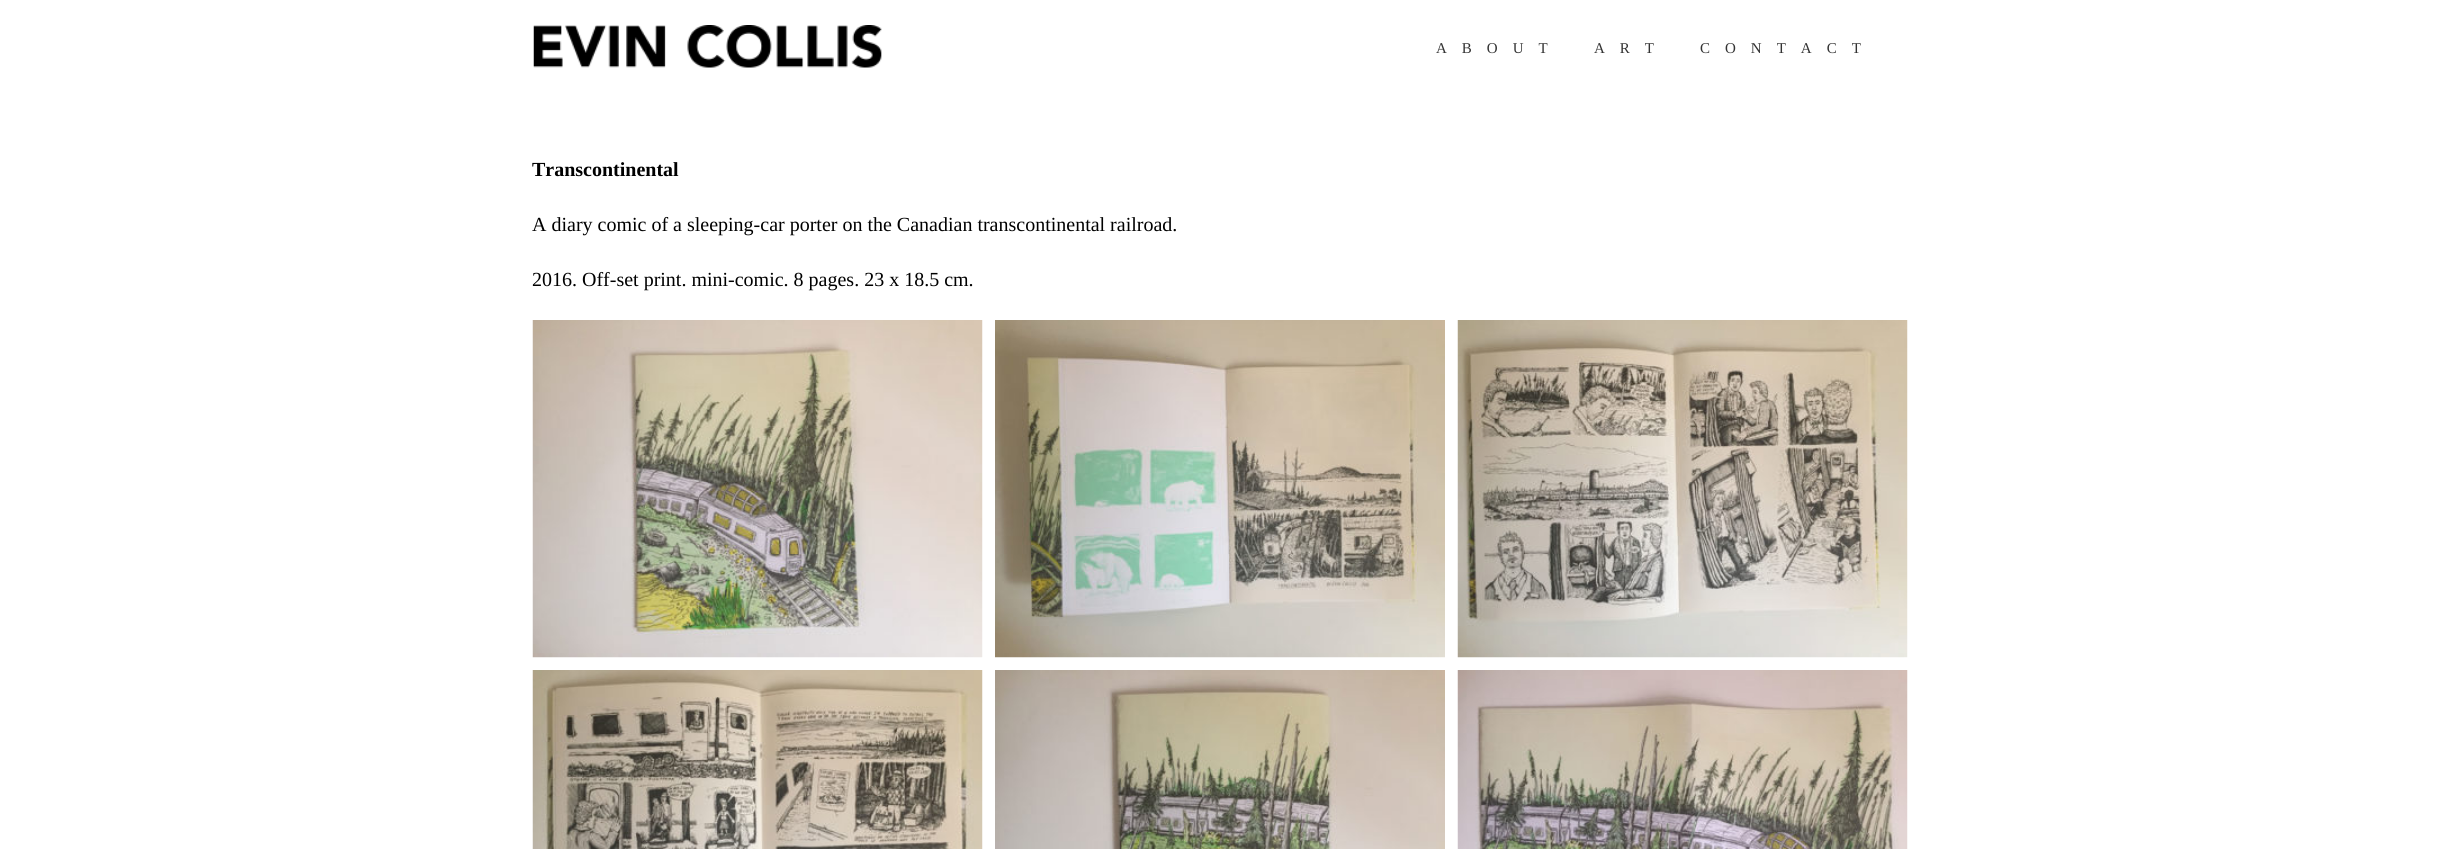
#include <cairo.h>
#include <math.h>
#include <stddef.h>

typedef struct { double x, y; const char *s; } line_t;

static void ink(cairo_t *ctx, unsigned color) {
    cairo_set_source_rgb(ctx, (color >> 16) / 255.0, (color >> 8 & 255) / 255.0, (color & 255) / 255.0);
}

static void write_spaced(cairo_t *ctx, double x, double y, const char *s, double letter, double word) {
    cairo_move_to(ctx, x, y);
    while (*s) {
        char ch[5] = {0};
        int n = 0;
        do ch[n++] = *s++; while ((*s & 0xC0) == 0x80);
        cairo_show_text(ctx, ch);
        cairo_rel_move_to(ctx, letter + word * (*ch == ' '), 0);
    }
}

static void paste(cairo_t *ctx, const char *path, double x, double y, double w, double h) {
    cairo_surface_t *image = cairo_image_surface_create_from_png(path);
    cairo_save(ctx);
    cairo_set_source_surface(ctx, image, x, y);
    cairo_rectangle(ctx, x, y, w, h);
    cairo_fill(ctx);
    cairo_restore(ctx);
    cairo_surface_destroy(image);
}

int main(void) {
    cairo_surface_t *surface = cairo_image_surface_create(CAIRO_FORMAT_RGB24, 2440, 849);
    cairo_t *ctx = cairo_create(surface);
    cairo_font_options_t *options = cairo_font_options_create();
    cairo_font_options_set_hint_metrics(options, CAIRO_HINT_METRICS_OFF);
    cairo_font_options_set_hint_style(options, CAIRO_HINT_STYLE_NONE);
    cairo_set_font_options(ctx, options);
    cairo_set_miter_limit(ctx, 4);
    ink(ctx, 0xFFFFFF);
    cairo_paint(ctx);
    paste(ctx, "media/1.png", 533, 25, 349, 43);
    cairo_select_font_face(ctx, "Liberation Serif", CAIRO_FONT_SLANT_NORMAL, CAIRO_FONT_WEIGHT_NORMAL);
    cairo_set_font_size(ctx, 15);
    ink(ctx, 0x333333);
    {
        static const line_t items[] = {
            {1436, 53, "ABOUT"},
            {1594, 53, "ART"},
            {1700, 53, "CONTACT"},
        };
        for (size_t i = 0; i < sizeof items / sizeof *items; i++) {
            write_spaced(ctx, items[i].x, items[i].y, items[i].s, 15, 0);
        }
    }
    cairo_select_font_face(ctx, "Liberation Serif", CAIRO_FONT_SLANT_NORMAL, CAIRO_FONT_WEIGHT_BOLD);
    cairo_set_font_size(ctx, 20);
    ink(ctx, 0x000000);
    cairo_move_to(ctx, 532, 176);
    cairo_show_text(ctx, "Transcontinental");
    cairo_select_font_face(ctx, "Liberation Serif", CAIRO_FONT_SLANT_NORMAL, CAIRO_FONT_WEIGHT_NORMAL);
    cairo_move_to(ctx, 532, 231);
    cairo_show_text(ctx, "A diary comic of a sleeping-car porter on the Canadian transcontinental railroad.");
    cairo_move_to(ctx, 532, 286);
    cairo_show_text(ctx, "2016. Off-set print. mini-comic. 8 pages. 23 x 18.5 cm.");
    paste(ctx, "media/2.png", 532, 320, 451, 338);
    paste(ctx, "media/3.png", 995, 320, 450, 338);
    paste(ctx, "media/4.png", 1457, 320, 451, 338);
    paste(ctx, "media/5.png", 532, 670, 451, 179);
    paste(ctx, "media/6.png", 995, 670, 450, 179);
    paste(ctx, "media/7.png", 1457, 670, 451, 179);
    cairo_surface_write_to_png(surface, "image.png");
    cairo_font_options_destroy(options);
    cairo_destroy(ctx);
    cairo_surface_destroy(surface);
    return 0;
}
